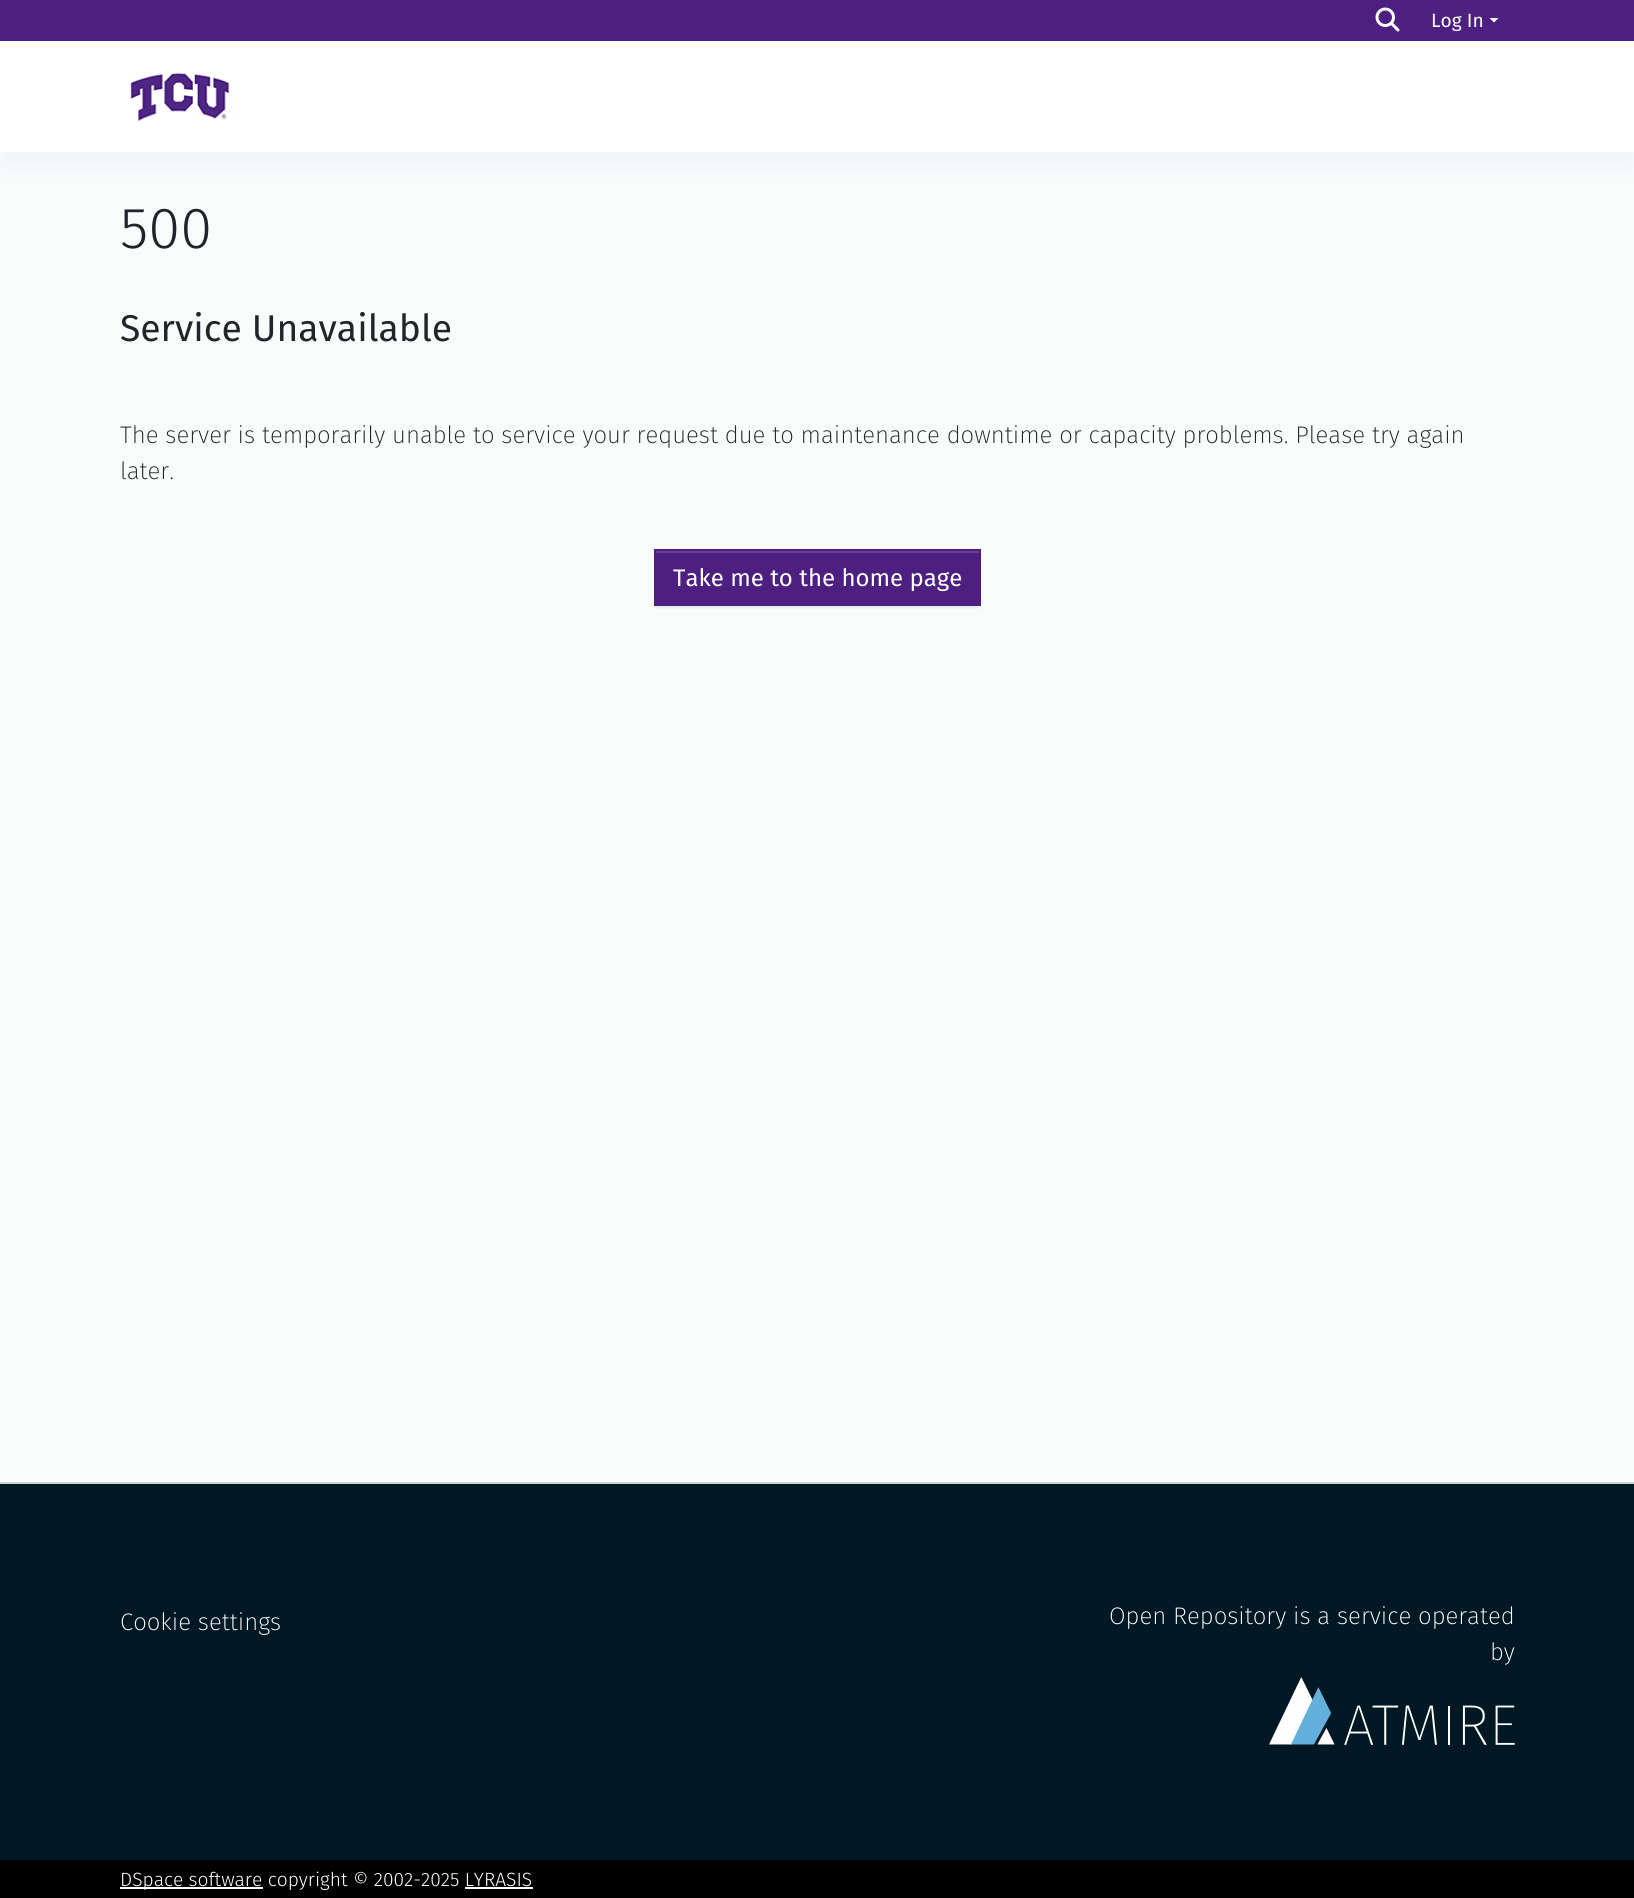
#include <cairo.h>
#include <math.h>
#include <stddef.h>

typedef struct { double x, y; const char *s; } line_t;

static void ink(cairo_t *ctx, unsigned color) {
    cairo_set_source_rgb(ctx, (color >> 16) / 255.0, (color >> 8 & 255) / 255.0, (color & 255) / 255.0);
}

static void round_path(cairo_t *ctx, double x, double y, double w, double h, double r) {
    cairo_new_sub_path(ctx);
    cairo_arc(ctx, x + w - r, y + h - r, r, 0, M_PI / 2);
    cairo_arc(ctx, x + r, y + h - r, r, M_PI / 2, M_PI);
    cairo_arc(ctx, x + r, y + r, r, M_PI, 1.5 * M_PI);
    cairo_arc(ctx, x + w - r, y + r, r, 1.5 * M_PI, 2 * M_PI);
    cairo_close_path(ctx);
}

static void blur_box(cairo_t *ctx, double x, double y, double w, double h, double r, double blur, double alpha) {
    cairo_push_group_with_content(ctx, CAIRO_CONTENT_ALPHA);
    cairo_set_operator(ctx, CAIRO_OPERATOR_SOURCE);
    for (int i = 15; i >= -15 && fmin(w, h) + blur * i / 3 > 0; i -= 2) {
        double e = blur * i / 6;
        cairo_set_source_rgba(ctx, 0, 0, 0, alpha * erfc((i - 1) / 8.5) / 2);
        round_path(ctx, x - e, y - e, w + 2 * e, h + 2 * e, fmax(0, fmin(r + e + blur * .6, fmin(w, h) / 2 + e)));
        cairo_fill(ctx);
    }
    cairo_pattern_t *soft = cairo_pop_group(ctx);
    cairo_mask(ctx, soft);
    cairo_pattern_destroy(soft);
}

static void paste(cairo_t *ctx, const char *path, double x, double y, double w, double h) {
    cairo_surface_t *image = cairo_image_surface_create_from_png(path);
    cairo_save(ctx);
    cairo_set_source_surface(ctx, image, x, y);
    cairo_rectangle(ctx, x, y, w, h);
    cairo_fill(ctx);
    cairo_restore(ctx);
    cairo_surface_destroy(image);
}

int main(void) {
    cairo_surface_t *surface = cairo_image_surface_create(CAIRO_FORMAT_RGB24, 1634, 1898);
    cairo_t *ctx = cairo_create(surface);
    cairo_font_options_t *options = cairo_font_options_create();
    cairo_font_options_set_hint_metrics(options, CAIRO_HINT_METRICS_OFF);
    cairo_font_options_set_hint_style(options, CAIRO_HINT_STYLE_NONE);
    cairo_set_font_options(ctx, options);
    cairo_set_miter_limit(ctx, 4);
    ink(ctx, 0xFAFBFB);
    cairo_paint(ctx);
    ink(ctx, 0x63B3DE);
    blur_box(ctx, 0, 12, 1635, 152, 0, 12, 0.08);
    ink(ctx, 0xFFFFFF);
    cairo_rectangle(ctx, 0, 41, 1634, 111);
    cairo_fill(ctx);
    ink(ctx, 0x4D1F80);
    cairo_rectangle(ctx, 0, 0, 1634, 41);
    cairo_fill(ctx);
    paste(ctx, "media/1.png", 1375, 7, 25, 25);
    cairo_select_font_face(ctx, "Fira Sans", CAIRO_FONT_SLANT_NORMAL, CAIRO_FONT_WEIGHT_NORMAL);
    cairo_set_font_size(ctx, 19.2);
    ink(ctx, 0xFFFFFF);
    cairo_move_to(ctx, 1431, 27);
    cairo_show_text(ctx, "Log In");
    cairo_new_path(ctx);
    cairo_move_to(ctx, 1489.5, 18);
    cairo_line_to(ctx, 1498.5, 18);
    cairo_line_to(ctx, 1494, 22.5);
    cairo_close_path(ctx);
    cairo_fill(ctx);
    paste(ctx, "media/2.png", 130, 72, 100, 50);
    cairo_select_font_face(ctx, "Fira Sans Light", CAIRO_FONT_SLANT_NORMAL, CAIRO_FONT_WEIGHT_NORMAL);
    cairo_set_font_size(ctx, 58);
    ink(ctx, 0x212529);
    cairo_move_to(ctx, 120, 248);
    cairo_show_text(ctx, "500");
    cairo_select_font_face(ctx, "Fira Sans", CAIRO_FONT_SLANT_NORMAL, CAIRO_FONT_WEIGHT_NORMAL);
    cairo_set_font_size(ctx, 37.25);
    cairo_move_to(ctx, 120, 341);
    cairo_show_text(ctx, "Service Unavailable");
    cairo_select_font_face(ctx, "Fira Sans ExtraLight", CAIRO_FONT_SLANT_NORMAL, CAIRO_FONT_WEIGHT_NORMAL);
    cairo_set_font_size(ctx, 24);
    cairo_move_to(ctx, 120, 443);
    cairo_show_text(ctx, "The server is temporarily unable to service your request due to maintenance downtime or capacity problems. Please try again");
    cairo_move_to(ctx, 120, 479);
    cairo_show_text(ctx, "later.");
    ink(ctx, 0x000000);
    blur_box(ctx, 654, 551, 327, 57, 0, 1, 0.07);
    ink(ctx, 0x4D1F80);
    cairo_rectangle(ctx, 656, 553, 323, 51);
    cairo_fill(ctx);
    ink(ctx, 0x684193);
    cairo_rectangle(ctx, 656, 551, 324, 2);
    cairo_fill(ctx);
    cairo_rectangle(ctx, 655, 550, 325, 55);
    ink(ctx, 0x4D1F80);
    cairo_stroke(ctx);
    cairo_select_font_face(ctx, "Fira Sans", CAIRO_FONT_SLANT_NORMAL, CAIRO_FONT_WEIGHT_NORMAL);
    ink(ctx, 0xFFFFFF);
    cairo_move_to(ctx, 673, 586);
    cairo_show_text(ctx, "Take me to the home page");
    ink(ctx, 0x001824);
    cairo_rectangle(ctx, 0, 1484, 1634, 376);
    cairo_fill(ctx);
    ink(ctx, 0xCED4DA);
    cairo_rectangle(ctx, 0, 1482, 1634, 2);
    cairo_fill(ctx);
    cairo_select_font_face(ctx, "Fira Sans ExtraLight", CAIRO_FONT_SLANT_NORMAL, CAIRO_FONT_WEIGHT_NORMAL);
    ink(ctx, 0xFFFFFF);
    {
        static const line_t items[] = {
            {120, 1630, "Cookie settings"},
            {1109, 1624, "Open Repository is a service operated"},
            {1490, 1660, "by"},
        };
        for (size_t i = 0; i < sizeof items / sizeof *items; i++) {
            cairo_move_to(ctx, items[i].x, items[i].y);
            cairo_show_text(ctx, items[i].s);
        }
    }
    paste(ctx, "media/3.png", 1269, 1677, 246, 68);
    ink(ctx, 0x000000);
    cairo_rectangle(ctx, 0, 1860, 1634, 38);
    cairo_fill(ctx);
    ink(ctx, 0xFFFFFF);
    cairo_rectangle(ctx, 120, 1887, 143, 2);
    cairo_fill(ctx);
    cairo_select_font_face(ctx, "Fira Sans Light", CAIRO_FONT_SLANT_NORMAL, CAIRO_FONT_WEIGHT_NORMAL);
    cairo_set_font_size(ctx, 19.2);
    cairo_move_to(ctx, 120, 1886);
    cairo_show_text(ctx, "DSpace software copyright © 2002-2025 LYRASIS");
    cairo_rectangle(ctx, 465, 1887, 68, 2);
    cairo_fill(ctx);
    cairo_surface_write_to_png(surface, "image.png");
    cairo_font_options_destroy(options);
    cairo_destroy(ctx);
    cairo_surface_destroy(surface);
    return 0;
}
